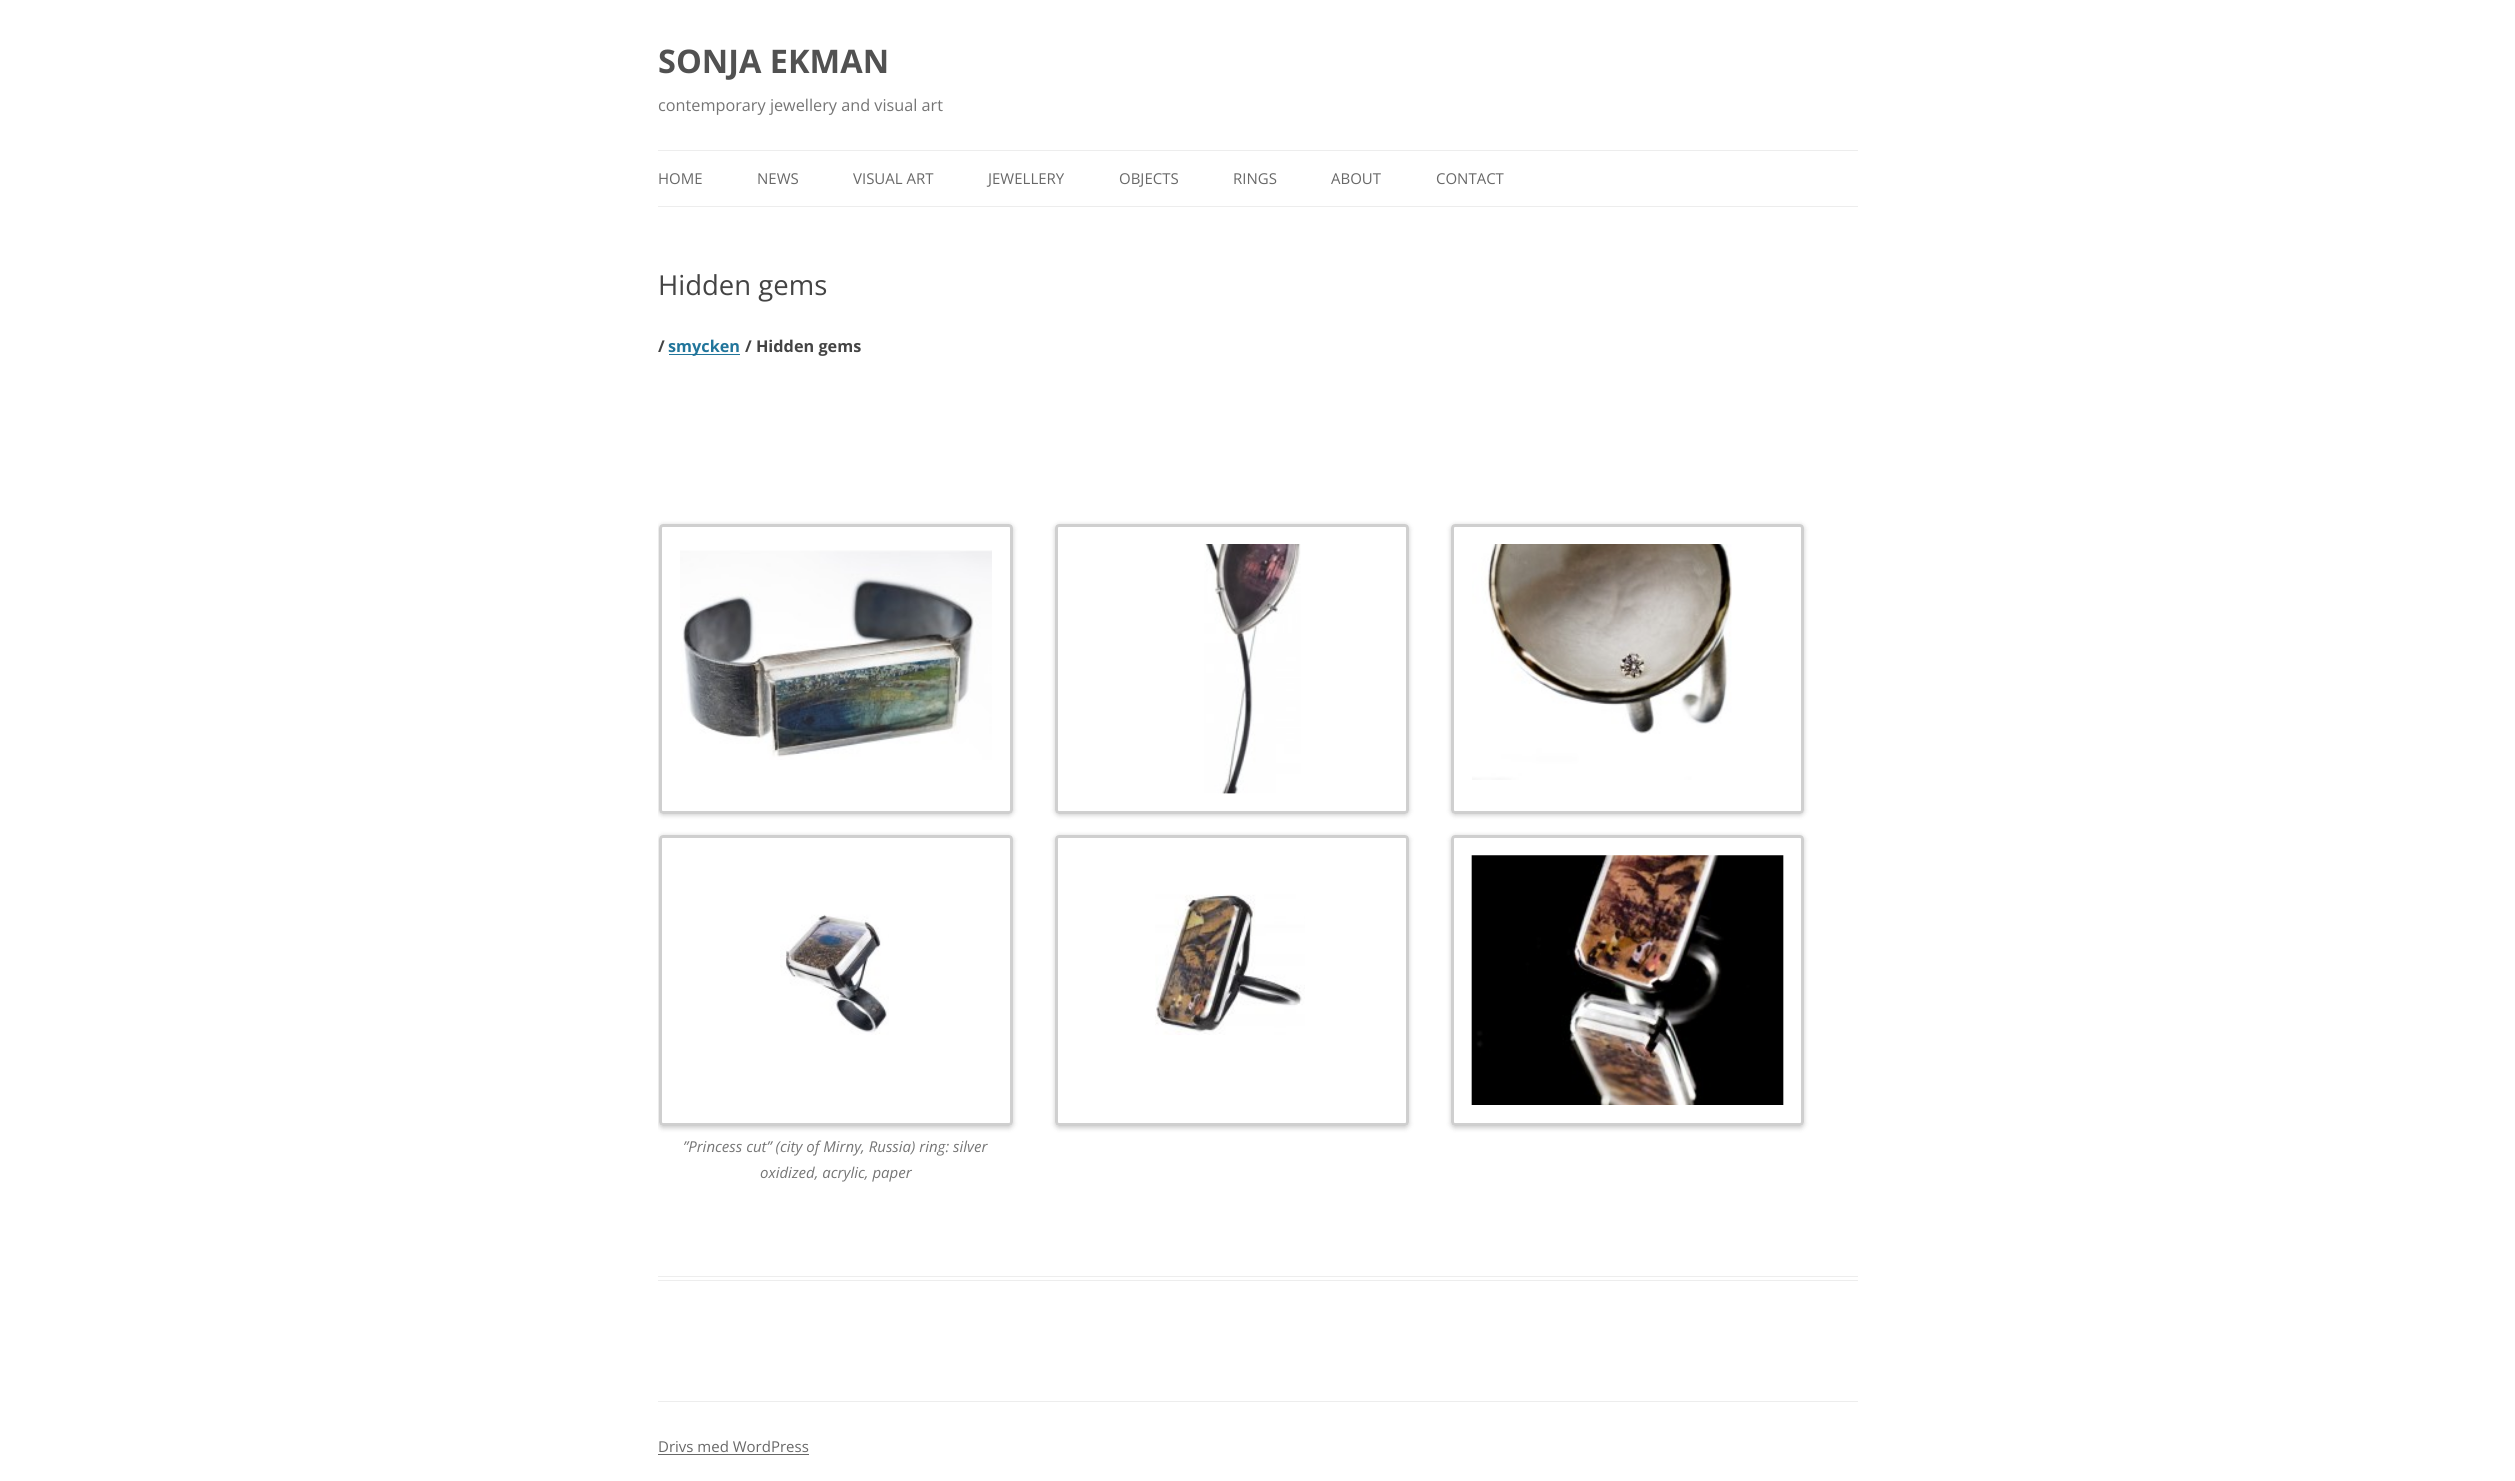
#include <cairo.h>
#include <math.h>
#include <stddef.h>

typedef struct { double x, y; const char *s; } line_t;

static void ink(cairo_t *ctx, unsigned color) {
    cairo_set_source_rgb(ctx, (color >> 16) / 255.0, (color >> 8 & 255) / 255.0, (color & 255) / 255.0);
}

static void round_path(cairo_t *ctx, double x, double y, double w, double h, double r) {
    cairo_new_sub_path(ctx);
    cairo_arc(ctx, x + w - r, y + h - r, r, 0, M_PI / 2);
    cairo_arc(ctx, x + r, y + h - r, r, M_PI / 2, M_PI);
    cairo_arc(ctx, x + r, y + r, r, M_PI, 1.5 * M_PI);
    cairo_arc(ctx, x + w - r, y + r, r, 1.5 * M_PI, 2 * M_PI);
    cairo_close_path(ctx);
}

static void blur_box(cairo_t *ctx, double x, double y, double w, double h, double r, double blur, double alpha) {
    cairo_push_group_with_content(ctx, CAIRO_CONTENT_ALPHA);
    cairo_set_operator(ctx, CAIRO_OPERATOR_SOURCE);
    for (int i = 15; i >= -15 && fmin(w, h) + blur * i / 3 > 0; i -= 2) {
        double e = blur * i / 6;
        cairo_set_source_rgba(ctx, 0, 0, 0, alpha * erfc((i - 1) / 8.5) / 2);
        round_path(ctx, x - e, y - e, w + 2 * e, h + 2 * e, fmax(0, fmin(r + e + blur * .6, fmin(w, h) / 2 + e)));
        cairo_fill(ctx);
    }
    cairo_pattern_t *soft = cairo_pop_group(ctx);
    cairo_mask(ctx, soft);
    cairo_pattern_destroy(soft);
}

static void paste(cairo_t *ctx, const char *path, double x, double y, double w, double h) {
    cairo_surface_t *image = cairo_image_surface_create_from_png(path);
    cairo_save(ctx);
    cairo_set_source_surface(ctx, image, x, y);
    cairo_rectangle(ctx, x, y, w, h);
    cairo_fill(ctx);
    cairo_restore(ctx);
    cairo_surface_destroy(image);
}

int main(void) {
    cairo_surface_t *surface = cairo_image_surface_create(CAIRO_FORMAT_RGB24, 2515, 1481);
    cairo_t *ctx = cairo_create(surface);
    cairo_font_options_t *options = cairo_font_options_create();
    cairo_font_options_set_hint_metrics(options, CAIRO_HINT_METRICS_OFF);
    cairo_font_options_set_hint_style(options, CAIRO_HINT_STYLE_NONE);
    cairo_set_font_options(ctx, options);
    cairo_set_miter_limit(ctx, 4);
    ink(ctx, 0xFFFFFF);
    cairo_paint(ctx);
    cairo_select_font_face(ctx, "Open Sans", CAIRO_FONT_SLANT_NORMAL, CAIRO_FONT_WEIGHT_BOLD);
    cairo_set_font_size(ctx, 32.5);
    ink(ctx, 0x515151);
    cairo_move_to(ctx, 658, 73);
    cairo_show_text(ctx, "SONJA EKMAN");
    cairo_select_font_face(ctx, "Open Sans", CAIRO_FONT_SLANT_NORMAL, CAIRO_FONT_WEIGHT_NORMAL);
    cairo_set_font_size(ctx, 16.25);
    ink(ctx, 0x757575);
    cairo_move_to(ctx, 658, 111);
    cairo_show_text(ctx, "contemporary jewellery and visual art");
    ink(ctx, 0xEDEDED);
    cairo_rectangle(ctx, 658, 150, 1200, 1);
    cairo_fill(ctx);
    cairo_rectangle(ctx, 658, 206, 1200, 1);
    cairo_fill(ctx);
    cairo_set_font_size(ctx, 15);
    ink(ctx, 0x686868);
    {
        static const line_t items[] = {
            {658, 184, "HOME"},
            {757, 184, "NEWS"},
            {853, 184, "VISUAL ART"},
            {988, 184, "JEWELLERY"},
            {1119, 184, "OBJECTS"},
            {1233, 184, "RINGS"},
            {1331, 184, "ABOUT"},
            {1436, 184, "CONTACT"},
        };
        for (size_t i = 0; i < sizeof items / sizeof *items; i++) {
            cairo_move_to(ctx, items[i].x, items[i].y);
            cairo_show_text(ctx, items[i].s);
        }
    }
    ink(ctx, 0xEDEDED);
    cairo_rectangle(ctx, 658, 1276, 1200, 1);
    cairo_fill(ctx);
    cairo_rectangle(ctx, 658, 1280, 1200, 1);
    cairo_fill(ctx);
    cairo_set_font_size(ctx, 27.5);
    ink(ctx, 0x444444);
    cairo_move_to(ctx, 658, 295);
    cairo_show_text(ctx, "Hidden gems");
    cairo_select_font_face(ctx, "Open Sans", CAIRO_FONT_SLANT_NORMAL, CAIRO_FONT_WEIGHT_BOLD);
    cairo_set_font_size(ctx, 16.25);
    cairo_move_to(ctx, 658, 352);
    cairo_show_text(ctx, "/");
    ink(ctx, 0x21759B);
    cairo_rectangle(ctx, 669, 354, 71, 1);
    cairo_fill(ctx);
    cairo_move_to(ctx, 668, 352);
    cairo_show_text(ctx, "smycken");
    ink(ctx, 0x444444);
    cairo_move_to(ctx, 745, 352);
    cairo_show_text(ctx, "/ Hidden gems");
    cairo_save(ctx);
    cairo_rectangle(ctx, 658, 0, 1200, 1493);
    cairo_clip(ctx);
    cairo_set_fill_rule(ctx, CAIRO_FILL_RULE_EVEN_ODD);
    cairo_new_path(ctx);
    cairo_move_to(ctx, 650, 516);
    cairo_line_to(ctx, 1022, 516);
    cairo_line_to(ctx, 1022, 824);
    cairo_line_to(ctx, 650, 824);
    cairo_close_path(ctx);
    cairo_move_to(ctx, 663, 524);
    cairo_line_to(ctx, 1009, 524);
    cairo_curve_to(ctx, 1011, 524, 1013, 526, 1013, 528);
    cairo_line_to(ctx, 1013, 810);
    cairo_curve_to(ctx, 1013, 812, 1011, 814, 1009, 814);
    cairo_line_to(ctx, 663, 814);
    cairo_curve_to(ctx, 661, 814, 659, 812, 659, 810);
    cairo_line_to(ctx, 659, 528);
    cairo_curve_to(ctx, 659, 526, 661, 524, 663, 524);
    cairo_close_path(ctx);
    cairo_clip(ctx);
    ink(ctx, 0x000000);
    blur_box(ctx, 659, 525, 354, 290, 4, 2.5, 0.2);
    cairo_restore(ctx);
    round_path(ctx, 660.5, 525.5, 351, 287, 2.5);
    ink(ctx, 0xCFCFCF);
    cairo_set_line_width(ctx, 3);
    cairo_stroke(ctx);
    paste(ctx, "media/1.png", 680, 550, 312, 210);
    cairo_save(ctx);
    cairo_set_fill_rule(ctx, CAIRO_FILL_RULE_EVEN_ODD);
    cairo_new_path(ctx);
    cairo_move_to(ctx, 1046, 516);
    cairo_line_to(ctx, 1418, 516);
    cairo_line_to(ctx, 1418, 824);
    cairo_line_to(ctx, 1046, 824);
    cairo_close_path(ctx);
    cairo_move_to(ctx, 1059, 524);
    cairo_line_to(ctx, 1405, 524);
    cairo_curve_to(ctx, 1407, 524, 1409, 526, 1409, 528);
    cairo_line_to(ctx, 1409, 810);
    cairo_curve_to(ctx, 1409, 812, 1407, 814, 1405, 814);
    cairo_line_to(ctx, 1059, 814);
    cairo_curve_to(ctx, 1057, 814, 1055, 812, 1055, 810);
    cairo_line_to(ctx, 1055, 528);
    cairo_curve_to(ctx, 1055, 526, 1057, 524, 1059, 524);
    cairo_close_path(ctx);
    cairo_clip(ctx);
    ink(ctx, 0x000000);
    blur_box(ctx, 1055, 525, 354, 290, 4, 2.5, 0.2);
    cairo_restore(ctx);
    round_path(ctx, 1056.5, 525.5, 351, 287, 2.5);
    cairo_stroke(ctx);
    paste(ctx, "media/2.png", 1204, 544, 97, 250);
    cairo_save(ctx);
    cairo_set_fill_rule(ctx, CAIRO_FILL_RULE_EVEN_ODD);
    cairo_new_path(ctx);
    cairo_move_to(ctx, 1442, 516);
    cairo_line_to(ctx, 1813, 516);
    cairo_line_to(ctx, 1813, 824);
    cairo_line_to(ctx, 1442, 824);
    cairo_close_path(ctx);
    cairo_move_to(ctx, 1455, 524);
    cairo_line_to(ctx, 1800, 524);
    cairo_curve_to(ctx, 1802, 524, 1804, 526, 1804, 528);
    cairo_line_to(ctx, 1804, 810);
    cairo_curve_to(ctx, 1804, 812, 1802, 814, 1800, 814);
    cairo_line_to(ctx, 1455, 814);
    cairo_curve_to(ctx, 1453, 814, 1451, 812, 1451, 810);
    cairo_line_to(ctx, 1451, 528);
    cairo_curve_to(ctx, 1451, 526, 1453, 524, 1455, 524);
    cairo_close_path(ctx);
    cairo_clip(ctx);
    ink(ctx, 0x000000);
    blur_box(ctx, 1451, 525, 353, 290, 4, 2.5, 0.2);
    cairo_restore(ctx);
    round_path(ctx, 1452.5, 525.5, 350, 287, 2.5);
    cairo_stroke(ctx);
    paste(ctx, "media/3.png", 1472, 544, 260, 236);
    cairo_save(ctx);
    cairo_set_fill_rule(ctx, CAIRO_FILL_RULE_EVEN_ODD);
    cairo_new_path(ctx);
    cairo_move_to(ctx, 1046, 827);
    cairo_line_to(ctx, 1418, 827);
    cairo_line_to(ctx, 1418, 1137);
    cairo_line_to(ctx, 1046, 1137);
    cairo_close_path(ctx);
    cairo_move_to(ctx, 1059, 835);
    cairo_line_to(ctx, 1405, 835);
    cairo_curve_to(ctx, 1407, 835, 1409, 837, 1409, 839);
    cairo_line_to(ctx, 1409, 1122);
    cairo_curve_to(ctx, 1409, 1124, 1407, 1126, 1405, 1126);
    cairo_line_to(ctx, 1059, 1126);
    cairo_curve_to(ctx, 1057, 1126, 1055, 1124, 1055, 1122);
    cairo_line_to(ctx, 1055, 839);
    cairo_curve_to(ctx, 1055, 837, 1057, 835, 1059, 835);
    cairo_close_path(ctx);
    cairo_clip(ctx);
    ink(ctx, 0x000000);
    blur_box(ctx, 1055, 836, 354, 292, 4, 2.5, 0.2);
    cairo_restore(ctx);
    round_path(ctx, 1056.5, 836.5, 351, 288, 2.5);
    cairo_stroke(ctx);
    paste(ctx, "media/4.png", 1155, 894, 150, 141);
    cairo_save(ctx);
    cairo_set_fill_rule(ctx, CAIRO_FILL_RULE_EVEN_ODD);
    cairo_new_path(ctx);
    cairo_move_to(ctx, 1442, 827);
    cairo_line_to(ctx, 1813, 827);
    cairo_line_to(ctx, 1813, 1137);
    cairo_line_to(ctx, 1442, 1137);
    cairo_close_path(ctx);
    cairo_move_to(ctx, 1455, 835);
    cairo_line_to(ctx, 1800, 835);
    cairo_curve_to(ctx, 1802, 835, 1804, 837, 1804, 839);
    cairo_line_to(ctx, 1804, 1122);
    cairo_curve_to(ctx, 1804, 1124, 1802, 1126, 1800, 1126);
    cairo_line_to(ctx, 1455, 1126);
    cairo_curve_to(ctx, 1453, 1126, 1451, 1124, 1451, 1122);
    cairo_line_to(ctx, 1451, 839);
    cairo_curve_to(ctx, 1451, 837, 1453, 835, 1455, 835);
    cairo_close_path(ctx);
    cairo_clip(ctx);
    ink(ctx, 0x000000);
    blur_box(ctx, 1451, 836, 353, 292, 4, 2.5, 0.2);
    cairo_restore(ctx);
    round_path(ctx, 1452.5, 836.5, 350, 288, 2.5);
    cairo_stroke(ctx);
    paste(ctx, "media/5.png", 1471, 855, 313, 250);
    cairo_save(ctx);
    cairo_rectangle(ctx, 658, 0, 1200, 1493);
    cairo_clip(ctx);
    cairo_set_fill_rule(ctx, CAIRO_FILL_RULE_EVEN_ODD);
    cairo_new_path(ctx);
    cairo_move_to(ctx, 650, 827);
    cairo_line_to(ctx, 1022, 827);
    cairo_line_to(ctx, 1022, 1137);
    cairo_line_to(ctx, 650, 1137);
    cairo_close_path(ctx);
    cairo_move_to(ctx, 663, 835);
    cairo_line_to(ctx, 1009, 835);
    cairo_curve_to(ctx, 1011, 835, 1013, 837, 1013, 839);
    cairo_line_to(ctx, 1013, 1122);
    cairo_curve_to(ctx, 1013, 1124, 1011, 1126, 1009, 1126);
    cairo_line_to(ctx, 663, 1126);
    cairo_curve_to(ctx, 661, 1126, 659, 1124, 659, 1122);
    cairo_line_to(ctx, 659, 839);
    cairo_curve_to(ctx, 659, 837, 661, 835, 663, 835);
    cairo_close_path(ctx);
    cairo_clip(ctx);
    ink(ctx, 0x000000);
    blur_box(ctx, 659, 836, 354, 292, 4, 2.5, 0.2);
    cairo_restore(ctx);
    round_path(ctx, 660.5, 836.5, 351, 288, 2.5);
    cairo_stroke(ctx);
    paste(ctx, "media/6.png", 780, 914, 109, 121);
    cairo_select_font_face(ctx, "Open Sans", CAIRO_FONT_SLANT_ITALIC, CAIRO_FONT_WEIGHT_NORMAL);
    cairo_set_font_size(ctx, 15);
    ink(ctx, 0x757575);
    cairo_move_to(ctx, 683, 1152);
    cairo_show_text(ctx, "”Princess cut” (city of Mirny, Russia) ring: silver");
    cairo_move_to(ctx, 760, 1178);
    cairo_show_text(ctx, "oxidized, acrylic, paper");
    ink(ctx, 0xEDEDED);
    cairo_rectangle(ctx, 658, 1401, 1200, 1);
    cairo_fill(ctx);
    cairo_select_font_face(ctx, "Open Sans", CAIRO_FONT_SLANT_NORMAL, CAIRO_FONT_WEIGHT_NORMAL);
    ink(ctx, 0x686868);
    cairo_move_to(ctx, 658, 1452);
    cairo_show_text(ctx, "Drivs med WordPress");
    cairo_rectangle(ctx, 658, 1454, 151, 1);
    cairo_fill(ctx);
    cairo_surface_write_to_png(surface, "image.png");
    cairo_font_options_destroy(options);
    cairo_destroy(ctx);
    cairo_surface_destroy(surface);
    return 0;
}
